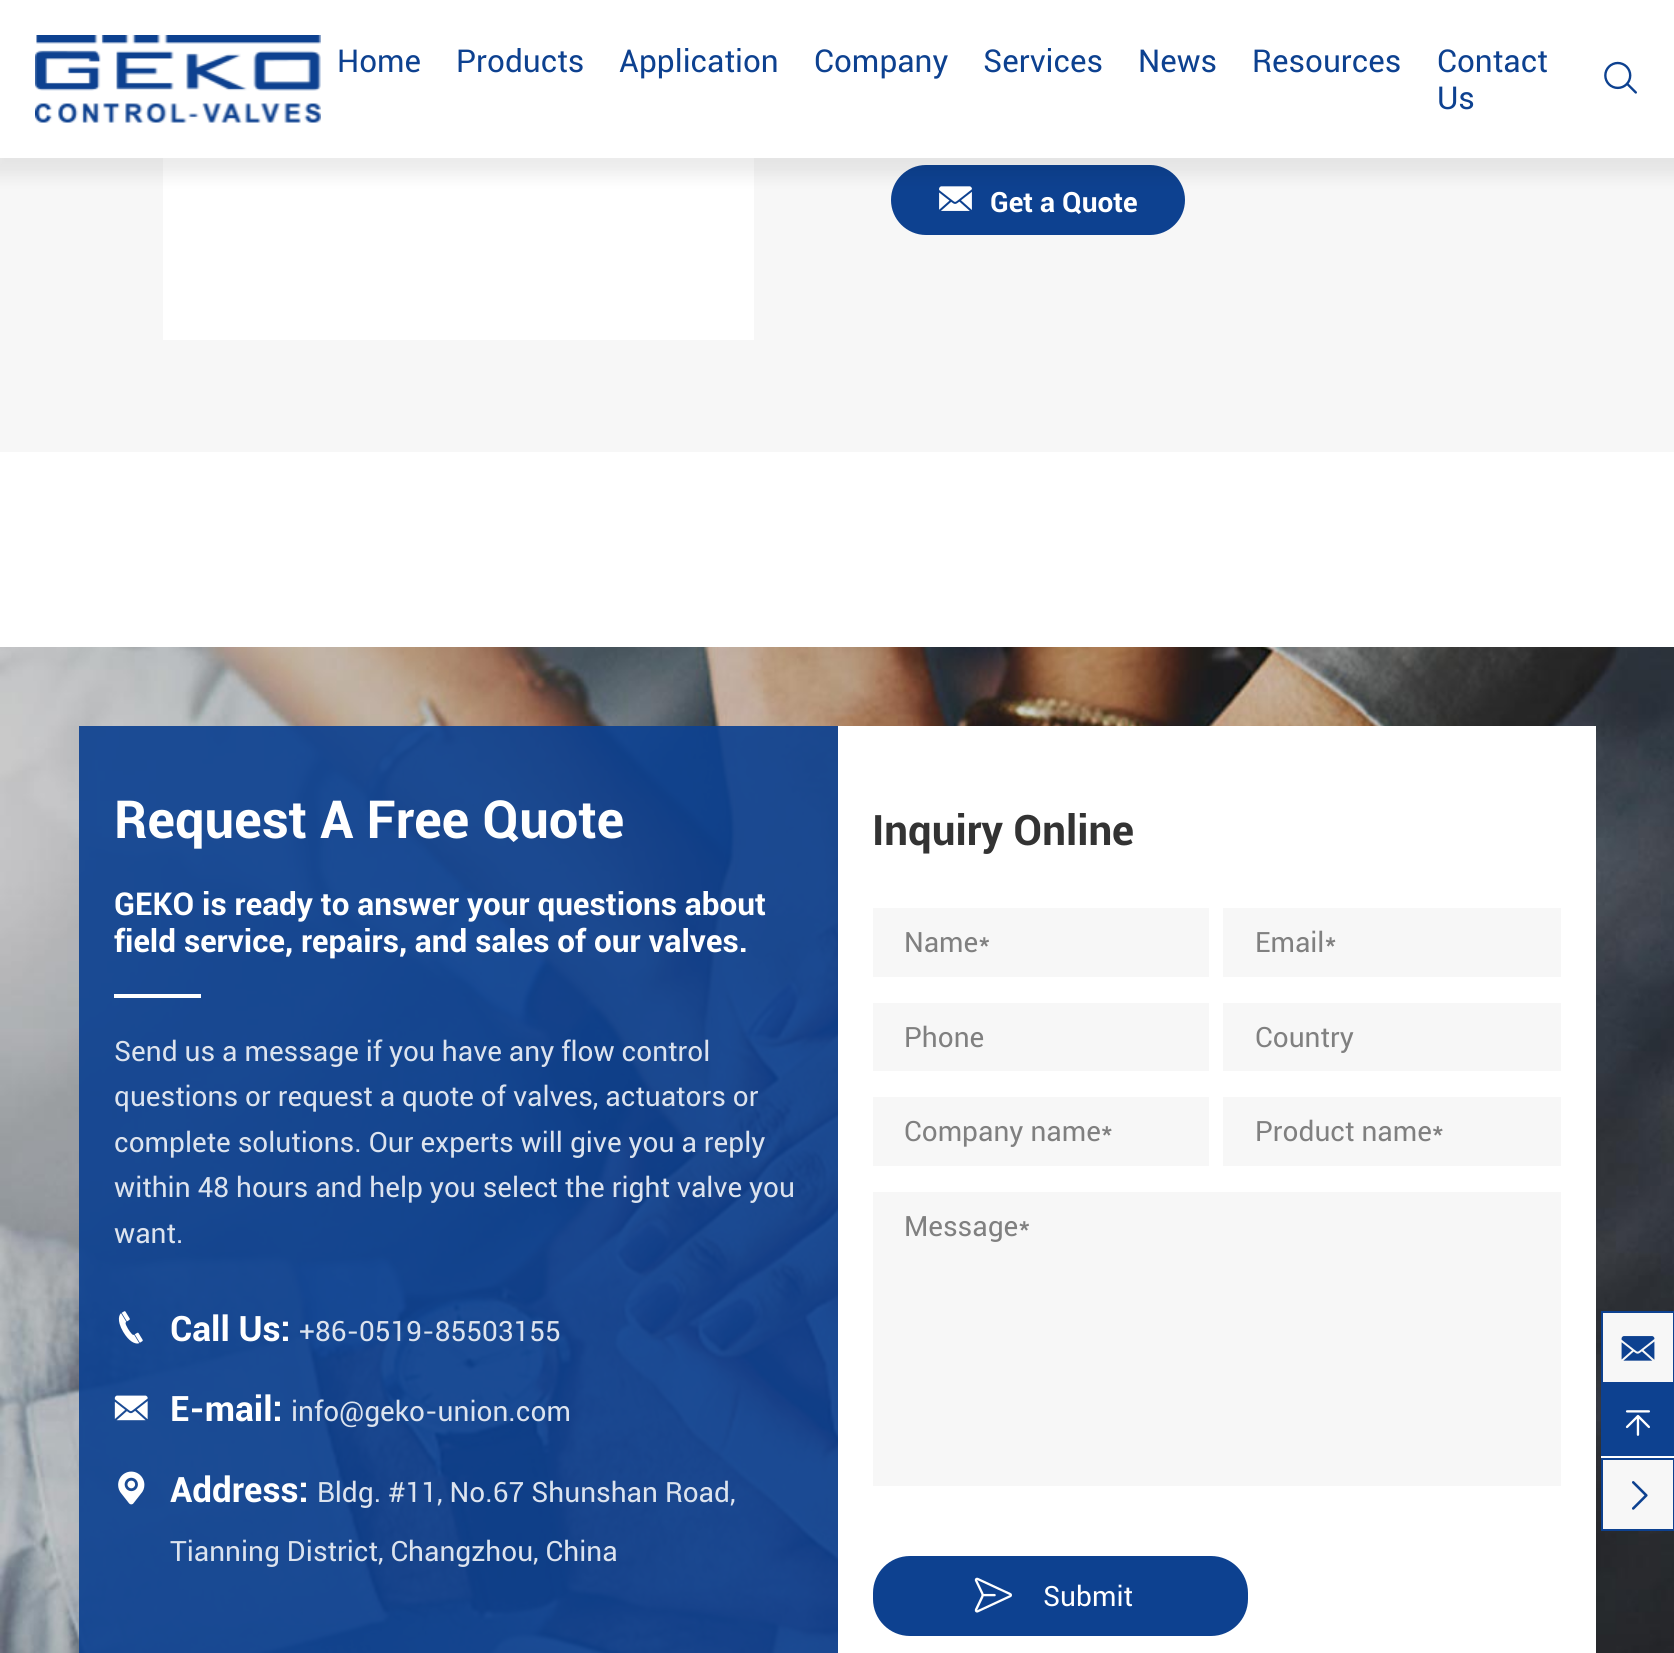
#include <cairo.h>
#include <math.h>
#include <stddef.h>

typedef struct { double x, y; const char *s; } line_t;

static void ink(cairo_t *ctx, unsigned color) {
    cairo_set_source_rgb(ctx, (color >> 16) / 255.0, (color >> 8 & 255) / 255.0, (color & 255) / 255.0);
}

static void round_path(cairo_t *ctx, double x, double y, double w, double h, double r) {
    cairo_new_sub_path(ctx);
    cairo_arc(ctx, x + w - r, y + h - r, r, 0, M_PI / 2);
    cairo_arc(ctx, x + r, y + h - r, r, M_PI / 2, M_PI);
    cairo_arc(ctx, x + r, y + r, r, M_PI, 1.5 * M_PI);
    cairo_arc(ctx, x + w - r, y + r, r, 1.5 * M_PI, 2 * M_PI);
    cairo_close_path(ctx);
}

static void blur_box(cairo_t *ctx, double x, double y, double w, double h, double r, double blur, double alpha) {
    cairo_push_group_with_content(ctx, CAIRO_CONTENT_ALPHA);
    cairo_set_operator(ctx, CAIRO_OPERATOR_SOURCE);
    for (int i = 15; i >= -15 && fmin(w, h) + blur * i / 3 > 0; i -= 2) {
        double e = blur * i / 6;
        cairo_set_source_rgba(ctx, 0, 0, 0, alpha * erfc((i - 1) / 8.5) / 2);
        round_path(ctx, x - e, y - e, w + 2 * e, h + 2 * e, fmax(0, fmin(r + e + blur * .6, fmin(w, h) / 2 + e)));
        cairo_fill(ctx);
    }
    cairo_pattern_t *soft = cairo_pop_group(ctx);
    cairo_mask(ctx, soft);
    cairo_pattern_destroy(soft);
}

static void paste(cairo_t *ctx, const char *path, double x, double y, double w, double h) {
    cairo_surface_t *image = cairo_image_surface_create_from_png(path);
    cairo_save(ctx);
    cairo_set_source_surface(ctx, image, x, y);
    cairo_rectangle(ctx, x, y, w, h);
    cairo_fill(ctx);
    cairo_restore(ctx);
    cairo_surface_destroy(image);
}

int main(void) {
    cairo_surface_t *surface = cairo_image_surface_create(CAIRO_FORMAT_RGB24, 1674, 1653);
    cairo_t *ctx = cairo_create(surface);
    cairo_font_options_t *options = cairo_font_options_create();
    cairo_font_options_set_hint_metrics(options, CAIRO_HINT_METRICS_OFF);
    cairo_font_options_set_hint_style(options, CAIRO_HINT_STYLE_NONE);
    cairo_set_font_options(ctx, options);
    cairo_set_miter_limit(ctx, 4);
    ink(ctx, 0xFFFFFF);
    cairo_paint(ctx);
    ink(ctx, 0xF7F7F7);
    cairo_rectangle(ctx, 0, 158, 1674, 294);
    cairo_fill(ctx);
    ink(ctx, 0xFFFFFF);
    cairo_rectangle(ctx, 163, 158, 591, 182);
    cairo_fill(ctx);
    ink(ctx, 0x0D4190);
    round_path(ctx, 892, 166, 292, 68, 34);
    cairo_fill_preserve(ctx);
    cairo_stroke(ctx);
    paste(ctx, "media/3.png", 939, 186, 33, 25);
    ink(ctx, 0x000000);
    blur_box(ctx, -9, -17, 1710, 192, 0, 9, 0.08);
    ink(ctx, 0xFFFFFF);
    cairo_rectangle(ctx, 0, 0, 1674, 158);
    cairo_fill(ctx);
    paste(ctx, "media/1.png", 35, 35, 286, 88);
    cairo_select_font_face(ctx, "Roboto", CAIRO_FONT_SLANT_NORMAL, CAIRO_FONT_WEIGHT_NORMAL);
    cairo_set_font_size(ctx, 31.5);
    ink(ctx, 0x0D4190);
    {
        static const line_t items[] = {
            {337, 72, "Home"},
            {456, 72, "Products"},
            {619, 72, "Application"},
            {814, 72, "Company"},
            {983, 72, "Services"},
            {1138, 72, "News"},
            {1252, 72, "Resources"},
            {1437, 72, "Contact"},
            {1437, 109, "Us"},
        };
        for (size_t i = 0; i < sizeof items / sizeof *items; i++) {
            cairo_move_to(ctx, items[i].x, items[i].y);
            cairo_show_text(ctx, items[i].s);
        }
    }
    paste(ctx, "media/2.png", 1604, 61, 33, 33);
    cairo_select_font_face(ctx, "Roboto", CAIRO_FONT_SLANT_NORMAL, CAIRO_FONT_WEIGHT_BOLD);
    cairo_set_font_size(ctx, 28);
    ink(ctx, 0xFFFFFF);
    cairo_move_to(ctx, 990, 212);
    cairo_show_text(ctx, "Get a Quote");
    paste(ctx, "media/4.png", 0, 647, 1674, 1006);
    cairo_set_source_rgba(ctx, 0.051, 0.255, 0.565, 0.92);
    cairo_rectangle(ctx, 79, 726, 759, 927);
    cairo_fill(ctx);
    cairo_set_font_size(ctx, 52.5);
    ink(ctx, 0xFFFFFF);
    cairo_move_to(ctx, 114, 838);
    cairo_show_text(ctx, "Request A Free Quote");
    cairo_set_font_size(ctx, 31.5);
    cairo_move_to(ctx, 114, 915);
    cairo_show_text(ctx, "GEKO is ready to answer your questions about");
    cairo_move_to(ctx, 114, 952);
    cairo_show_text(ctx, "field service, repairs, and sales of our valves.");
    cairo_rectangle(ctx, 114, 994, 87, 4);
    cairo_fill(ctx);
    cairo_select_font_face(ctx, "Roboto", CAIRO_FONT_SLANT_NORMAL, CAIRO_FONT_WEIGHT_NORMAL);
    cairo_set_font_size(ctx, 28);
    ink(ctx, 0xDCE3EE);
    {
        static const line_t items[] = {
            {114, 1061, "Send us a message if you have any flow control"},
            {114, 1106, "questions or request a quote of valves, actuators or"},
            {114, 1152, "complete solutions. Our experts will give you a reply"},
            {114, 1197, "within 48 hours and help you select the right valve you"},
            {114, 1243, "want."},
        };
        for (size_t i = 0; i < sizeof items / sizeof *items; i++) {
            cairo_move_to(ctx, items[i].x, items[i].y);
            cairo_show_text(ctx, items[i].s);
        }
    }
    paste(ctx, "media/5.png", 118, 1311, 25, 33);
    cairo_select_font_face(ctx, "Roboto", CAIRO_FONT_SLANT_NORMAL, CAIRO_FONT_WEIGHT_BOLD);
    cairo_set_font_size(ctx, 35);
    ink(ctx, 0xFFFFFF);
    cairo_move_to(ctx, 170, 1341);
    cairo_show_text(ctx, "Call Us:");
    cairo_select_font_face(ctx, "Roboto", CAIRO_FONT_SLANT_NORMAL, CAIRO_FONT_WEIGHT_NORMAL);
    cairo_set_font_size(ctx, 28);
    ink(ctx, 0xDCE3EE);
    cairo_move_to(ctx, 299, 1341);
    cairo_show_text(ctx, "+86-0519-85503155");
    paste(ctx, "media/6.png", 114, 1395, 34, 26);
    cairo_select_font_face(ctx, "Roboto", CAIRO_FONT_SLANT_NORMAL, CAIRO_FONT_WEIGHT_BOLD);
    cairo_set_font_size(ctx, 35);
    ink(ctx, 0xFFFFFF);
    cairo_move_to(ctx, 170, 1421);
    cairo_show_text(ctx, "E-mail:");
    cairo_select_font_face(ctx, "Roboto", CAIRO_FONT_SLANT_NORMAL, CAIRO_FONT_WEIGHT_NORMAL);
    cairo_set_font_size(ctx, 28);
    ink(ctx, 0xDCE3EE);
    cairo_move_to(ctx, 291, 1421);
    cairo_show_text(ctx, "info@geko-union.com");
    paste(ctx, "media/7.png", 118, 1471, 27, 34);
    cairo_select_font_face(ctx, "Roboto", CAIRO_FONT_SLANT_NORMAL, CAIRO_FONT_WEIGHT_BOLD);
    cairo_set_font_size(ctx, 35);
    ink(ctx, 0xFFFFFF);
    cairo_move_to(ctx, 170, 1502);
    cairo_show_text(ctx, "Address:");
    cairo_select_font_face(ctx, "Roboto", CAIRO_FONT_SLANT_NORMAL, CAIRO_FONT_WEIGHT_NORMAL);
    cairo_set_font_size(ctx, 28);
    ink(ctx, 0xDCE3EE);
    cairo_move_to(ctx, 317, 1502);
    cairo_show_text(ctx, "Bldg. #11, No.67 Shunshan Road,");
    cairo_move_to(ctx, 170, 1561);
    cairo_show_text(ctx, "Tianning District, Changzhou, China");
    ink(ctx, 0xFFFFFF);
    cairo_rectangle(ctx, 838, 726, 758, 927);
    cairo_fill(ctx);
    cairo_select_font_face(ctx, "Roboto", CAIRO_FONT_SLANT_NORMAL, CAIRO_FONT_WEIGHT_BOLD);
    cairo_set_font_size(ctx, 42);
    ink(ctx, 0x333333);
    cairo_move_to(ctx, 872, 845);
    cairo_show_text(ctx, "Inquiry Online");
    ink(ctx, 0xF7F7F7);
    cairo_rectangle(ctx, 873, 908, 336, 69);
    cairo_fill(ctx);
    cairo_select_font_face(ctx, "Roboto", CAIRO_FONT_SLANT_NORMAL, CAIRO_FONT_WEIGHT_NORMAL);
    cairo_set_font_size(ctx, 28);
    ink(ctx, 0x808080);
    cairo_move_to(ctx, 904, 952);
    cairo_show_text(ctx, "Name*");
    ink(ctx, 0xF7F7F7);
    cairo_rectangle(ctx, 1223, 908, 338, 69);
    cairo_fill(ctx);
    ink(ctx, 0x808080);
    cairo_move_to(ctx, 1255, 952);
    cairo_show_text(ctx, "Email*");
    ink(ctx, 0xF7F7F7);
    cairo_rectangle(ctx, 873, 1003, 336, 68);
    cairo_fill(ctx);
    ink(ctx, 0x808080);
    cairo_move_to(ctx, 904, 1047);
    cairo_show_text(ctx, "Phone");
    ink(ctx, 0xF7F7F7);
    cairo_rectangle(ctx, 1223, 1003, 338, 68);
    cairo_fill(ctx);
    ink(ctx, 0x808080);
    cairo_move_to(ctx, 1255, 1047);
    cairo_show_text(ctx, "Country");
    ink(ctx, 0xF7F7F7);
    cairo_rectangle(ctx, 873, 1097, 336, 69);
    cairo_fill(ctx);
    ink(ctx, 0x808080);
    cairo_move_to(ctx, 904, 1141);
    cairo_show_text(ctx, "Company name*");
    ink(ctx, 0xF7F7F7);
    cairo_rectangle(ctx, 1223, 1097, 338, 69);
    cairo_fill(ctx);
    ink(ctx, 0x808080);
    cairo_move_to(ctx, 1255, 1141);
    cairo_show_text(ctx, "Product name*");
    ink(ctx, 0xF7F7F7);
    cairo_rectangle(ctx, 873, 1192, 688, 294);
    cairo_fill(ctx);
    ink(ctx, 0x808080);
    cairo_move_to(ctx, 904, 1236);
    cairo_show_text(ctx, "Message*");
    ink(ctx, 0x0D4190);
    round_path(ctx, 874, 1557, 373, 78, 36);
    cairo_fill_preserve(ctx);
    cairo_stroke(ctx);
    paste(ctx, "media/8.png", 974, 1577, 38, 36);
    ink(ctx, 0xFFFFFF);
    cairo_move_to(ctx, 1043, 1606);
    cairo_show_text(ctx, "Submit");
    ink(ctx, 0xF7F7F7);
    cairo_rectangle(ctx, 1602, 1312, 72, 71);
    cairo_fill_preserve(ctx);
    ink(ctx, 0x0D4190);
    cairo_stroke(ctx);
    paste(ctx, "media/9.png", 1621, 1336, 34, 25);
    cairo_rectangle(ctx, 1601, 1384, 73, 72);
    cairo_fill(ctx);
    ink(ctx, 0xFFFFFF);
    cairo_rectangle(ctx, 1601, 1456, 73, 2);
    cairo_fill(ctx);
    paste(ctx, "media/10.png", 1625, 1410, 25, 26);
    ink(ctx, 0xF7F7F7);
    cairo_rectangle(ctx, 1602, 1459, 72, 71);
    cairo_fill_preserve(ctx);
    ink(ctx, 0x0D4190);
    cairo_stroke(ctx);
    paste(ctx, "media/11.png", 1632, 1481, 16, 29);
    cairo_surface_write_to_png(surface, "image.png");
    cairo_font_options_destroy(options);
    cairo_destroy(ctx);
    cairo_surface_destroy(surface);
    return 0;
}
